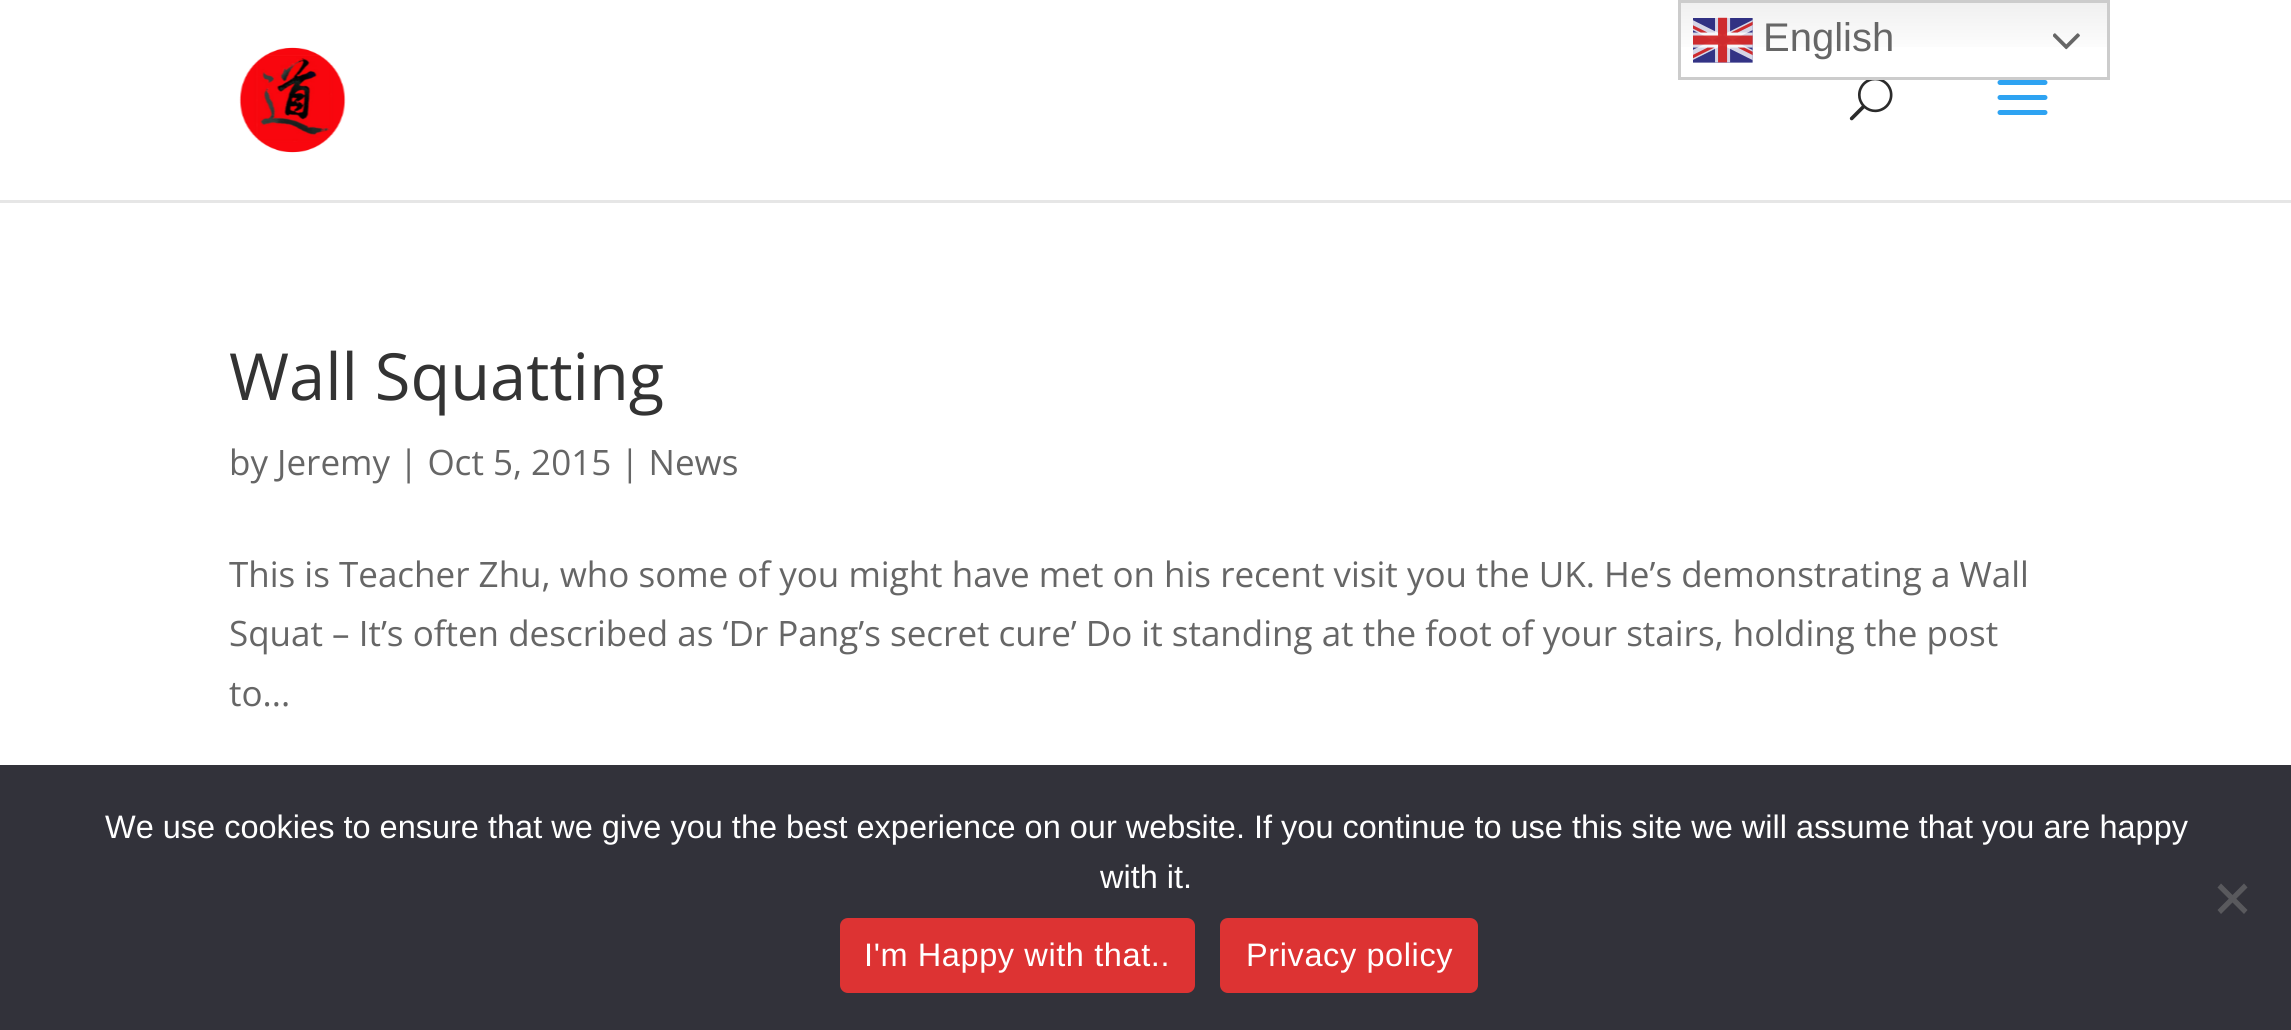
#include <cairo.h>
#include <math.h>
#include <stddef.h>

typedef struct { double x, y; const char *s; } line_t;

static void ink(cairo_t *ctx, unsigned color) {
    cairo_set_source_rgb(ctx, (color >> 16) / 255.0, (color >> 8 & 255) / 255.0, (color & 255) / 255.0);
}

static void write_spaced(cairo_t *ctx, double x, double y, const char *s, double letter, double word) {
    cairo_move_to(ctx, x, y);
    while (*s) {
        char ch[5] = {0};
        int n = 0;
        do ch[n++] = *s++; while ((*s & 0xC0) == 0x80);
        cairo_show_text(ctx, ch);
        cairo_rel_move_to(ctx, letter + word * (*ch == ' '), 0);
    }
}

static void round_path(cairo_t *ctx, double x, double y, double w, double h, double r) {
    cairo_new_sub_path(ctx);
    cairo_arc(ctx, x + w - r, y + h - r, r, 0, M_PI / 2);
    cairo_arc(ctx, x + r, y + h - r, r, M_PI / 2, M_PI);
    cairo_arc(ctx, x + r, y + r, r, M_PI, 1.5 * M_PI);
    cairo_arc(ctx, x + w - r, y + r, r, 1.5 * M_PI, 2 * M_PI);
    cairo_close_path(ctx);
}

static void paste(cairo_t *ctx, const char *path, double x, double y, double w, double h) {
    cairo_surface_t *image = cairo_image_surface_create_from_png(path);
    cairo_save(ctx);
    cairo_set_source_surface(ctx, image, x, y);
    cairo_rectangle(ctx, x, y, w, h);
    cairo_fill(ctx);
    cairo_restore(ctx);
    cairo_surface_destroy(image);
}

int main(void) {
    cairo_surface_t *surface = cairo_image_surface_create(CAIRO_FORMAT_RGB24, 2291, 1030);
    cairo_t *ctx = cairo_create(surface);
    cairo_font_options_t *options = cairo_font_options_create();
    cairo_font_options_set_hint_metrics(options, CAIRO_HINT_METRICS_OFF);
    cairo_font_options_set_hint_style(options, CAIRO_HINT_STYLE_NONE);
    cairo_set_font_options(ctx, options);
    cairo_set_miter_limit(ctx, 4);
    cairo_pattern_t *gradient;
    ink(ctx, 0xFFFFFF);
    cairo_paint(ctx);
    gradient = cairo_pattern_create_linear(1894, 0, 1894, 80);
    cairo_pattern_add_color_stop_rgba(gradient, 0, 0.937, 0.937, 0.937, 1);
    cairo_pattern_add_color_stop_rgba(gradient, 0.7, 1, 1, 1, 1);
    cairo_set_source(ctx, gradient);
    cairo_pattern_destroy(gradient);
    cairo_rectangle(ctx, 1681, 3, 426, 44);
    cairo_fill(ctx);
    cairo_rectangle(ctx, 1679.5, 1.5, 429, 77);
    ink(ctx, 0xCCCCCC);
    cairo_set_line_width(ctx, 3);
    cairo_stroke(ctx);
    paste(ctx, "media/1.png", 1693, 17, 60, 46);
    cairo_select_font_face(ctx, "Liberation Sans", CAIRO_FONT_SLANT_NORMAL, CAIRO_FONT_WEIGHT_NORMAL);
    cairo_set_font_size(ctx, 40);
    ink(ctx, 0x666666);
    cairo_move_to(ctx, 1763, 51);
    cairo_show_text(ctx, "English");
    paste(ctx, "media/2.png", 2053, 33, 27, 17);
    ink(ctx, 0xE6E6E6);
    cairo_new_path(ctx);
    cairo_move_to(ctx, 0, 200);
    cairo_line_to(ctx, 0, 203);
    cairo_line_to(ctx, 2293, 203);
    cairo_line_to(ctx, 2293, 3);
    cairo_line_to(ctx, 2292, 3);
    cairo_line_to(ctx, 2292, 200);
    cairo_close_path(ctx);
    cairo_fill(ctx);
    paste(ctx, "media/3.png", 239, 47, 107, 106);
    paste(ctx, "media/4.png", 1849, 80, 44, 41);
    paste(ctx, "media/5.png", 1997, 80, 51, 35);
    cairo_select_font_face(ctx, "Open Sans", CAIRO_FONT_SLANT_NORMAL, CAIRO_FONT_WEIGHT_NORMAL);
    cairo_set_font_size(ctx, 65);
    ink(ctx, 0x333333);
    cairo_move_to(ctx, 229, 400);
    cairo_show_text(ctx, "Wall Squatting");
    cairo_set_font_size(ctx, 35);
    ink(ctx, 0x666666);
    {
        static const line_t items[] = {
            {229, 475, "by Jeremy | Oct 5, 2015 | News"},
            {229, 587, "This is Teacher Zhu, who some of you might have met on his recent visit you the UK. He’s demonstrating a Wall"},
            {229, 646, "Squat – It’s often described as ‘Dr Pang’s secret cure’ Do it standing at the foot of your stairs, holding the post"},
            {229, 706, "to..."},
        };
        for (size_t i = 0; i < sizeof items / sizeof *items; i++) {
            cairo_move_to(ctx, items[i].x, items[i].y);
            cairo_show_text(ctx, items[i].s);
        }
    }
    ink(ctx, 0x32323A);
    cairo_rectangle(ctx, 0, 765, 2291, 265);
    cairo_fill(ctx);
    cairo_select_font_face(ctx, "Liberation Sans", CAIRO_FONT_SLANT_NORMAL, CAIRO_FONT_WEIGHT_NORMAL);
    cairo_set_font_size(ctx, 32.5);
    ink(ctx, 0xFFFFFF);
    cairo_move_to(ctx, 105, 838);
    cairo_show_text(ctx, "We use cookies to ensure that we give you the best experience on our website. If you continue to use this site we will assume that you are happy");
    cairo_move_to(ctx, 1100, 888);
    cairo_show_text(ctx, "with it.");
    ink(ctx, 0x59595D);
    cairo_new_path(ctx);
    cairo_move_to(ctx, 2244, 883.5);
    cairo_line_to(ctx, 2247.5, 887.5);
    cairo_line_to(ctx, 2221, 914);
    cairo_line_to(ctx, 2217.5, 910);
    cairo_close_path(ctx);
    cairo_fill(ctx);
    cairo_new_path(ctx);
    cairo_move_to(ctx, 2217.5, 887.5);
    cairo_line_to(ctx, 2221, 883.5);
    cairo_line_to(ctx, 2247.5, 910);
    cairo_line_to(ctx, 2244, 914);
    cairo_close_path(ctx);
    cairo_fill(ctx);
    ink(ctx, 0xDD3333);
    round_path(ctx, 840, 918, 355, 75, 8);
    cairo_fill(ctx);
    ink(ctx, 0xFFFFFF);
    write_spaced(ctx, 864, 966, "I'm Happy with that..", 0.6, 0);
    ink(ctx, 0xDD3333);
    round_path(ctx, 1220, 918, 258, 75, 8);
    cairo_fill(ctx);
    ink(ctx, 0xFFFFFF);
    write_spaced(ctx, 1246, 966, "Privacy policy", 0.6, 0);
    cairo_surface_write_to_png(surface, "image.png");
    cairo_font_options_destroy(options);
    cairo_destroy(ctx);
    cairo_surface_destroy(surface);
    return 0;
}
